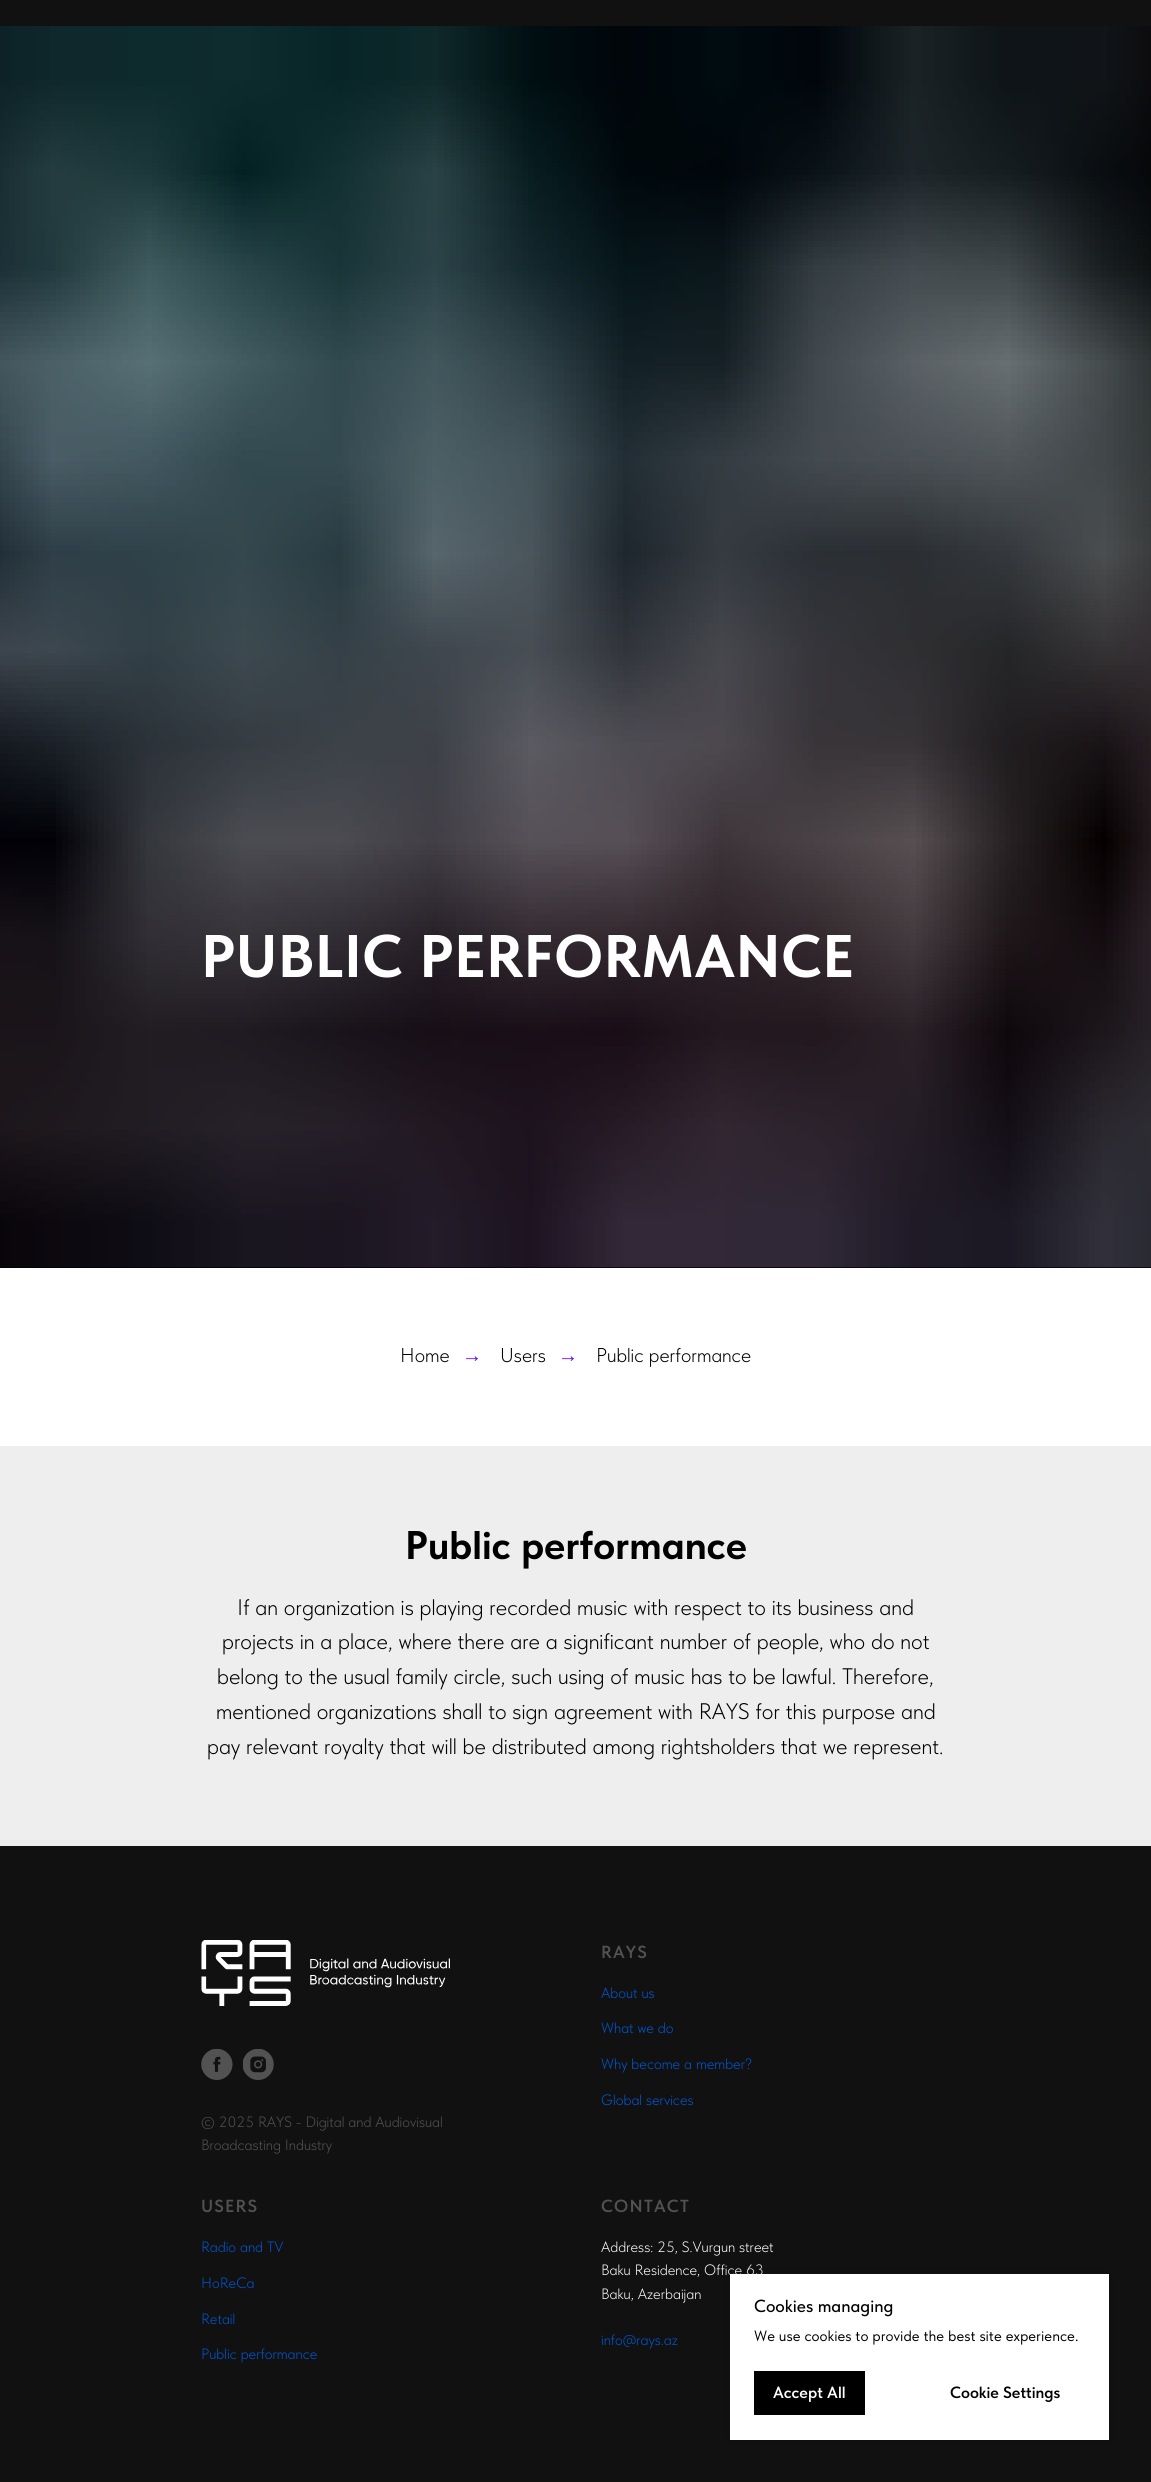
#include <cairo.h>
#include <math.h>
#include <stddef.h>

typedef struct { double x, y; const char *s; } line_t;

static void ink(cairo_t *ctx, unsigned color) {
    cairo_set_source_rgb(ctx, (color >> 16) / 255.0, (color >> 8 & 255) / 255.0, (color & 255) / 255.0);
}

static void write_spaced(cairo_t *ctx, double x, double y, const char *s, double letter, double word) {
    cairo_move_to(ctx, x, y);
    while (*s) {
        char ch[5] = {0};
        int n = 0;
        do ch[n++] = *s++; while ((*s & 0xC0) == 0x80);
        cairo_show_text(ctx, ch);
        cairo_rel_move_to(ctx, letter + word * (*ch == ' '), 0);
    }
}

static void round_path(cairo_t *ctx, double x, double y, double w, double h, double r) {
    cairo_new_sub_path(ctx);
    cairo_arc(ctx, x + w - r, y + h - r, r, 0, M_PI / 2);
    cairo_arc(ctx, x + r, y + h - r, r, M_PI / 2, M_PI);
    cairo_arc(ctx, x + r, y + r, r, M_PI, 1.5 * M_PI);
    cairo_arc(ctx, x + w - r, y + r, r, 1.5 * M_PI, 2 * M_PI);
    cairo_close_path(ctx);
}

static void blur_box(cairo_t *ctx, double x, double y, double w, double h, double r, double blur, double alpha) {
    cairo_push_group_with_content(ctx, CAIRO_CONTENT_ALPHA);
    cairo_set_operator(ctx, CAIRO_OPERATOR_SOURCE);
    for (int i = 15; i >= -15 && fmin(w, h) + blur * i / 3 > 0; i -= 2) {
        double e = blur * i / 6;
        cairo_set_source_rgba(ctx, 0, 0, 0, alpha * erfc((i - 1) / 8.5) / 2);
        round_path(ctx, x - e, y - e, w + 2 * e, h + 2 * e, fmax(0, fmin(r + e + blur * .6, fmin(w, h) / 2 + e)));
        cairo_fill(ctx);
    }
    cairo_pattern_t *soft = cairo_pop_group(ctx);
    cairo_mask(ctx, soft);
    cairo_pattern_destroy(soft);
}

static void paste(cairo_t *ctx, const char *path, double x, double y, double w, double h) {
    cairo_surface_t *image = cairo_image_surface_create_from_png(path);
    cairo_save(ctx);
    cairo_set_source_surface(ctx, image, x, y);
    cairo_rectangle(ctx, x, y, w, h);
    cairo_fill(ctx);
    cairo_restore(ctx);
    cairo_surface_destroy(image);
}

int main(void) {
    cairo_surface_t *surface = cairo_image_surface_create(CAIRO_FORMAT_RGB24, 1151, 2482);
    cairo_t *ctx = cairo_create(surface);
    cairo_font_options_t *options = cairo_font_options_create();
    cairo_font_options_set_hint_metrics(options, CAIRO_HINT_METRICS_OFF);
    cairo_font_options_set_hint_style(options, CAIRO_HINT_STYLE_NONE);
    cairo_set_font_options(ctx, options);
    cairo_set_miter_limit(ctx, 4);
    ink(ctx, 0xFFFFFF);
    cairo_paint(ctx);
    ink(ctx, 0x111111);
    cairo_rectangle(ctx, 0, 0, 1151, 26);
    cairo_fill(ctx);
    ink(ctx, 0x000000);
    cairo_rectangle(ctx, 0, 1267, 1151, 1);
    cairo_fill(ctx);
    paste(ctx, "media/1.png", 0, 26, 1151, 1242);
    cairo_select_font_face(ctx, "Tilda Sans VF", CAIRO_FONT_SLANT_NORMAL, CAIRO_FONT_WEIGHT_BOLD);
    cairo_set_font_size(ctx, 60);
    ink(ctx, 0xFFFFFF);
    write_spaced(ctx, 201, 977, "PUBLIC PERFORMANCE", 0.4, 0);
    cairo_select_font_face(ctx, "Tilda Sans VF Light", CAIRO_FONT_SLANT_NORMAL, CAIRO_FONT_WEIGHT_NORMAL);
    cairo_set_font_size(ctx, 20);
    ink(ctx, 0x000000);
    cairo_move_to(ctx, 400, 1362);
    cairo_show_text(ctx, "Home");
    cairo_select_font_face(ctx, "Liberation Sans", CAIRO_FONT_SLANT_NORMAL, CAIRO_FONT_WEIGHT_NORMAL);
    ink(ctx, 0x6900FF);
    cairo_move_to(ctx, 462, 1362);
    cairo_show_text(ctx, "→");
    cairo_select_font_face(ctx, "Tilda Sans VF Light", CAIRO_FONT_SLANT_NORMAL, CAIRO_FONT_WEIGHT_NORMAL);
    ink(ctx, 0x000000);
    cairo_move_to(ctx, 500, 1362);
    cairo_show_text(ctx, "Users");
    cairo_select_font_face(ctx, "Liberation Sans", CAIRO_FONT_SLANT_NORMAL, CAIRO_FONT_WEIGHT_NORMAL);
    ink(ctx, 0x6900FF);
    cairo_move_to(ctx, 558, 1362);
    cairo_show_text(ctx, "→");
    cairo_select_font_face(ctx, "Tilda Sans VF Light", CAIRO_FONT_SLANT_NORMAL, CAIRO_FONT_WEIGHT_NORMAL);
    ink(ctx, 0x000000);
    cairo_move_to(ctx, 596, 1362);
    cairo_show_text(ctx, "Public performance");
    ink(ctx, 0xEEEEEE);
    cairo_rectangle(ctx, 0, 1446, 1151, 400);
    cairo_fill(ctx);
    cairo_select_font_face(ctx, "Tilda Sans VF", CAIRO_FONT_SLANT_NORMAL, CAIRO_FONT_WEIGHT_BOLD);
    cairo_set_font_size(ctx, 40);
    ink(ctx, 0x000000);
    cairo_move_to(ctx, 405, 1559);
    cairo_show_text(ctx, "Public performance");
    cairo_select_font_face(ctx, "Tilda Sans VF Light", CAIRO_FONT_SLANT_NORMAL, CAIRO_FONT_WEIGHT_NORMAL);
    cairo_set_font_size(ctx, 22.5);
    {
        static const line_t items[] = {
            {237, 1615, "If an organization is playing recorded music with respect to its business and"},
            {222, 1649, "projects in a place, where there are a significant number of people, who do not"},
            {217, 1684, "belong to the usual family circle, such using of music has to be lawful. Therefore,"},
            {216, 1719, "mentioned organizations shall to sign agreement with RAYS for this purpose and"},
            {207, 1754, "pay relevant royalty that will be distributed among rightsholders that we represent."},
        };
        for (size_t i = 0; i < sizeof items / sizeof *items; i++) {
            cairo_move_to(ctx, items[i].x, items[i].y);
            cairo_show_text(ctx, items[i].s);
        }
    }
    ink(ctx, 0x111111);
    cairo_rectangle(ctx, 0, 1846, 1151, 636);
    cairo_fill(ctx);
    cairo_select_font_face(ctx, "Tilda Sans VF SemiBold", CAIRO_FONT_SLANT_NORMAL, CAIRO_FONT_WEIGHT_NORMAL);
    cairo_set_font_size(ctx, 17.5);
    ink(ctx, 0x525252);
    write_spaced(ctx, 601, 1958, "RAYS", 1.25, 0);
    cairo_select_font_face(ctx, "Tilda Sans VF Light", CAIRO_FONT_SLANT_NORMAL, CAIRO_FONT_WEIGHT_NORMAL);
    cairo_set_font_size(ctx, 15);
    ink(ctx, 0x0056D3);
    {
        static const line_t items[] = {
            {601, 1998, "About us"},
            {601, 2033, "What we do"},
            {601, 2069, "Why become a member?"},
            {601, 2105, "Global services"},
        };
        for (size_t i = 0; i < sizeof items / sizeof *items; i++) {
            cairo_move_to(ctx, items[i].x, items[i].y);
            cairo_show_text(ctx, items[i].s);
        }
    }
    paste(ctx, "media/2.png", 201, 1940, 249, 66);
    paste(ctx, "media/3.png", 201, 2049, 32, 31);
    paste(ctx, "media/4.png", 243, 2049, 31, 31);
    ink(ctx, 0x525252);
    cairo_move_to(ctx, 201, 2127);
    cairo_show_text(ctx, "© 2025 RAYS - Digital and Audiovisual");
    cairo_move_to(ctx, 201, 2150);
    cairo_show_text(ctx, "Broadcasting Industry");
    cairo_select_font_face(ctx, "Tilda Sans VF SemiBold", CAIRO_FONT_SLANT_NORMAL, CAIRO_FONT_WEIGHT_NORMAL);
    cairo_set_font_size(ctx, 17.5);
    write_spaced(ctx, 201, 2212, "USERS", 1.25, 0);
    cairo_select_font_face(ctx, "Tilda Sans VF Light", CAIRO_FONT_SLANT_NORMAL, CAIRO_FONT_WEIGHT_NORMAL);
    cairo_set_font_size(ctx, 15);
    ink(ctx, 0x0056D3);
    {
        static const line_t items[] = {
            {201, 2252, "Radio and TV"},
            {201, 2288, "HoReCa"},
            {201, 2324, "Retail"},
            {201, 2359, "Public performance"},
        };
        for (size_t i = 0; i < sizeof items / sizeof *items; i++) {
            cairo_move_to(ctx, items[i].x, items[i].y);
            cairo_show_text(ctx, items[i].s);
        }
    }
    cairo_select_font_face(ctx, "Tilda Sans VF SemiBold", CAIRO_FONT_SLANT_NORMAL, CAIRO_FONT_WEIGHT_NORMAL);
    cairo_set_font_size(ctx, 17.5);
    ink(ctx, 0x525252);
    write_spaced(ctx, 601, 2212, "CONTACT", 1.25, 0);
    cairo_select_font_face(ctx, "Tilda Sans VF Light", CAIRO_FONT_SLANT_NORMAL, CAIRO_FONT_WEIGHT_NORMAL);
    cairo_set_font_size(ctx, 15);
    ink(ctx, 0xFFFFFF);
    {
        static const line_t items[] = {
            {601, 2252, "Address: 25, S.Vurgun street"},
            {601, 2275, "Baku Residence, Office 63"},
            {601, 2299, "Baku, Azerbaijan"},
        };
        for (size_t i = 0; i < sizeof items / sizeof *items; i++) {
            cairo_move_to(ctx, items[i].x, items[i].y);
            cairo_show_text(ctx, items[i].s);
        }
    }
    ink(ctx, 0x0056D3);
    cairo_move_to(ctx, 601, 2345);
    cairo_show_text(ctx, "info@rays.az");
    ink(ctx, 0x000000);
    blur_box(ctx, 730, 2274, 379, 166, 0, 9.5, 0.1);
    ink(ctx, 0xFFFFFF);
    cairo_rectangle(ctx, 730, 2274, 379, 166);
    cairo_fill(ctx);
    cairo_select_font_face(ctx, "Tilda Sans VF Medium", CAIRO_FONT_SLANT_NORMAL, CAIRO_FONT_WEIGHT_NORMAL);
    cairo_set_font_size(ctx, 17.5);
    ink(ctx, 0x000000);
    cairo_move_to(ctx, 754, 2312);
    cairo_show_text(ctx, "Cookies managing");
    cairo_select_font_face(ctx, "Tilda Sans VF", CAIRO_FONT_SLANT_NORMAL, CAIRO_FONT_WEIGHT_NORMAL);
    cairo_set_font_size(ctx, 15);
    cairo_move_to(ctx, 754, 2341);
    cairo_show_text(ctx, "We use cookies to provide the best site experience.");
    cairo_rectangle(ctx, 754, 2371, 111, 44);
    cairo_fill(ctx);
    cairo_select_font_face(ctx, "Tilda Sans VF SemiBold", CAIRO_FONT_SLANT_NORMAL, CAIRO_FONT_WEIGHT_NORMAL);
    cairo_set_font_size(ctx, 16.25);
    ink(ctx, 0xFFFFFF);
    cairo_move_to(ctx, 773, 2398);
    cairo_show_text(ctx, "Accept All");
    ink(ctx, 0x000000);
    cairo_move_to(ctx, 950, 2398);
    cairo_show_text(ctx, "Cookie Settings");
    cairo_surface_write_to_png(surface, "image.png");
    cairo_font_options_destroy(options);
    cairo_destroy(ctx);
    cairo_surface_destroy(surface);
    return 0;
}
